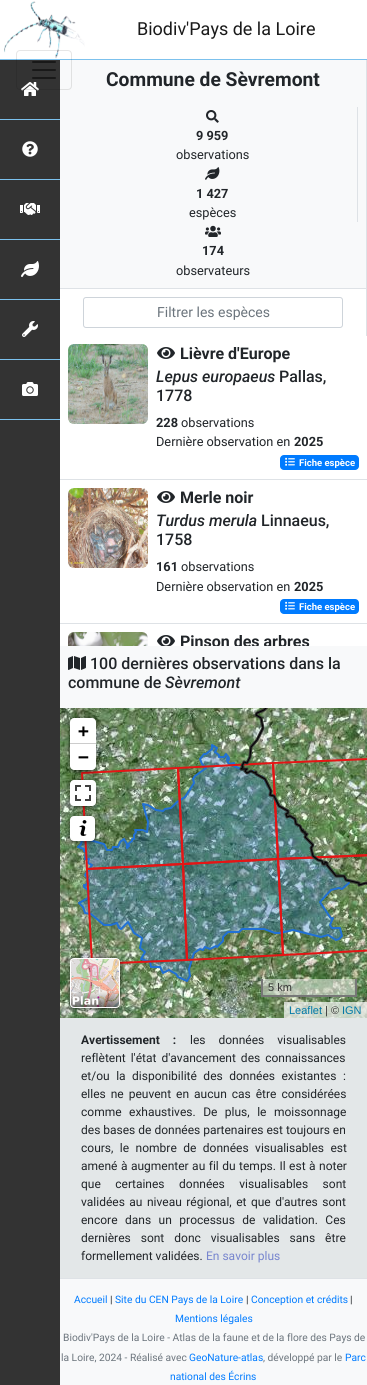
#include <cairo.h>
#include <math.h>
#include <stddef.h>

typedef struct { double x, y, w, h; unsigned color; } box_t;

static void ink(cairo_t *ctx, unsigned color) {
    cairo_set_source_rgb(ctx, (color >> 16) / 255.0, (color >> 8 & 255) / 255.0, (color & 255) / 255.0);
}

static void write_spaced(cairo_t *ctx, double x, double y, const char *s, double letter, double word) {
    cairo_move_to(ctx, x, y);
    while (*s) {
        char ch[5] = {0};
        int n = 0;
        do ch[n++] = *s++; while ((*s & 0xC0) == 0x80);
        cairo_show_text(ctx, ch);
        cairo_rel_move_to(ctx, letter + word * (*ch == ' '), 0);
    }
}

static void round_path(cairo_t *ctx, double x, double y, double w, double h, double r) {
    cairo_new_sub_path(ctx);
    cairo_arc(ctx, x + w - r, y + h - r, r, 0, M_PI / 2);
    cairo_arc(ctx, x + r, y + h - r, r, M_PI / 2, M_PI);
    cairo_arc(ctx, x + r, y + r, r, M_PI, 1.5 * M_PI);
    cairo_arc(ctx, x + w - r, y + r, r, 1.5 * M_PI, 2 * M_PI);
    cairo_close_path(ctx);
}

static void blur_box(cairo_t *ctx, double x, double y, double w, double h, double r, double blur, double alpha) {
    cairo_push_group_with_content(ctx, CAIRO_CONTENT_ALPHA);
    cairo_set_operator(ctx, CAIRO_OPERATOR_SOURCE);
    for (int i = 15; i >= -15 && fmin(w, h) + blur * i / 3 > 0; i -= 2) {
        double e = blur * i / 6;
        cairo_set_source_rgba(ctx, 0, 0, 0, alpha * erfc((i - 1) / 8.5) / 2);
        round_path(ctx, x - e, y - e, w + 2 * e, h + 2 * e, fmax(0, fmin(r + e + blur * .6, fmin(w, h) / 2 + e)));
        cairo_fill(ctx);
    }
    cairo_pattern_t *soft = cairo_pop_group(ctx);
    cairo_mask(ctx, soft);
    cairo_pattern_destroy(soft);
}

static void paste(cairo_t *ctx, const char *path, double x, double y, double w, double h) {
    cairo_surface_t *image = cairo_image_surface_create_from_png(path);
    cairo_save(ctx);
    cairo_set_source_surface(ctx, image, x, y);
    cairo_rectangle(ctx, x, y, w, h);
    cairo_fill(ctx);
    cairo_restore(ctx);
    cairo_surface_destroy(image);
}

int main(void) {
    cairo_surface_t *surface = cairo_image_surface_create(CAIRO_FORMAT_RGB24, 367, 1385);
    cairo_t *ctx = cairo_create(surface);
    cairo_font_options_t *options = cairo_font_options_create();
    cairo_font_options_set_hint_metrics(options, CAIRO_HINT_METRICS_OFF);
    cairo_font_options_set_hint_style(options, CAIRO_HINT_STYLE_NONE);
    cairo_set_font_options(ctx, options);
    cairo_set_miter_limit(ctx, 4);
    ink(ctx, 0xE3E7E8);
    cairo_paint(ctx);
    ink(ctx, 0xFFFFFF);
    cairo_rectangle(ctx, 0, 0, 367, 59);
    cairo_fill(ctx);
    ink(ctx, 0x7CC1ED);
    cairo_rectangle(ctx, 0, 59, 367, 1);
    cairo_fill(ctx);
    paste(ctx, "media/1.png", 4, 1, 81, 58);
    cairo_select_font_face(ctx, "Roboto", CAIRO_FONT_SLANT_NORMAL, CAIRO_FONT_WEIGHT_NORMAL);
    cairo_set_font_size(ctx, 18);
    ink(ctx, 0x1A1A1A);
    cairo_move_to(ctx, 137, 35);
    cairo_show_text(ctx, "Biodiv'Pays de la Loire");
    ink(ctx, 0x333333);
    cairo_rectangle(ctx, 0, 60, 60, 1325);
    cairo_fill(ctx);
    paste(ctx, "media/3.png", 21, 82, 18, 14);
    ink(ctx, 0xF8F9FA);
    cairo_rectangle(ctx, 60, 60, 306, 228);
    cairo_fill(ctx);
    round_path(ctx, 16.5, 50.5, 55, 39, 3.5);
    cairo_set_source_rgba(ctx, 0, 0, 0, 0.1);
    cairo_set_line_width(ctx, 1);
    cairo_stroke(ctx);
    paste(ctx, "media/2.png", 32, 61, 24, 18);
    ink(ctx, 0x7CC1ED);
    cairo_rectangle(ctx, 0, 119, 60, 1);
    cairo_fill(ctx);
    cairo_rectangle(ctx, 0, 179, 60, 1);
    cairo_fill(ctx);
    paste(ctx, "media/4.png", 22, 141, 16, 16);
    cairo_rectangle(ctx, 0, 239, 60, 1);
    cairo_fill(ctx);
    paste(ctx, "media/5.png", 20, 203, 20, 12);
    cairo_rectangle(ctx, 0, 299, 60, 1);
    cairo_fill(ctx);
    paste(ctx, "media/6.png", 21, 261, 18, 16);
    cairo_rectangle(ctx, 0, 359, 60, 1);
    cairo_fill(ctx);
    paste(ctx, "media/7.png", 22, 321, 16, 16);
    cairo_rectangle(ctx, 0, 419, 60, 1);
    cairo_fill(ctx);
    paste(ctx, "media/8.png", 22, 382, 16, 14);
    {
        static const box_t items[] = {
            {60, 1278, 307, 1, 0xDEE2E6},
            {366, 60, 1, 276, 0xDEE2E6},
            {60, 288, 307, 1, 0xDEE2E6},
        };
        for (size_t i = 0; i < sizeof items / sizeof *items; i++) {
            ink(ctx, items[i].color);
            cairo_rectangle(ctx, items[i].x, items[i].y, items[i].w, items[i].h);
            cairo_fill(ctx);
        }
    }
    cairo_select_font_face(ctx, "Roboto", CAIRO_FONT_SLANT_NORMAL, CAIRO_FONT_WEIGHT_BOLD);
    cairo_set_font_size(ctx, 19.25);
    ink(ctx, 0x212529);
    cairo_move_to(ctx, 106, 86);
    cairo_show_text(ctx, "Commune de Sèvremont");
    ink(ctx, 0xDEE2E6);
    cairo_rectangle(ctx, 357, 107, 1, 115);
    cairo_fill(ctx);
    paste(ctx, "media/9.png", 206, 110, 13, 13);
    cairo_set_font_size(ctx, 12.75);
    ink(ctx, 0x212529);
    cairo_move_to(ctx, 196, 140);
    cairo_show_text(ctx, "9 959");
    cairo_select_font_face(ctx, "Roboto", CAIRO_FONT_SLANT_NORMAL, CAIRO_FONT_WEIGHT_NORMAL);
    cairo_move_to(ctx, 176, 159);
    cairo_show_text(ctx, "observations");
    paste(ctx, "media/10.png", 205, 167, 15, 13);
    cairo_select_font_face(ctx, "Roboto", CAIRO_FONT_SLANT_NORMAL, CAIRO_FONT_WEIGHT_BOLD);
    cairo_move_to(ctx, 196, 198);
    cairo_show_text(ctx, "1 427");
    cairo_select_font_face(ctx, "Roboto", CAIRO_FONT_SLANT_NORMAL, CAIRO_FONT_WEIGHT_NORMAL);
    cairo_move_to(ctx, 189, 217);
    cairo_show_text(ctx, "espèces");
    paste(ctx, "media/11.png", 205, 225, 16, 12);
    cairo_select_font_face(ctx, "Roboto", CAIRO_FONT_SLANT_NORMAL, CAIRO_FONT_WEIGHT_BOLD);
    cairo_move_to(ctx, 202, 255);
    cairo_show_text(ctx, "174");
    cairo_select_font_face(ctx, "Roboto", CAIRO_FONT_SLANT_NORMAL, CAIRO_FONT_WEIGHT_NORMAL);
    cairo_move_to(ctx, 176, 275);
    cairo_show_text(ctx, "observateurs");
    ink(ctx, 0xFFFFFF);
    cairo_rectangle(ctx, 60, 289, 306, 47);
    cairo_fill(ctx);
    round_path(ctx, 83.5, 297.5, 259, 30, 2.5);
    ink(ctx, 0xCED4DA);
    cairo_stroke(ctx);
    cairo_set_font_size(ctx, 14);
    ink(ctx, 0x6C757D);
    cairo_move_to(ctx, 157, 317);
    cairo_show_text(ctx, "Filtrer les espèces");
    ink(ctx, 0xFFFFFF);
    cairo_rectangle(ctx, 60, 336, 307, 310);
    cairo_fill(ctx);
    ink(ctx, 0xDEE2E6);
    cairo_rectangle(ctx, 60, 479, 307, 1);
    cairo_fill(ctx);
    paste(ctx, "media/12.png", 68, 344, 80, 80);
    paste(ctx, "media/13.png", 157, 347, 18, 12);
    cairo_select_font_face(ctx, "Roboto", CAIRO_FONT_SLANT_NORMAL, CAIRO_FONT_WEIGHT_BOLD);
    cairo_set_font_size(ctx, 16);
    ink(ctx, 0x212529);
    cairo_move_to(ctx, 180, 359);
    cairo_show_text(ctx, "Lièvre d'Europe");
    cairo_select_font_face(ctx, "Roboto Medium", CAIRO_FONT_SLANT_ITALIC, CAIRO_FONT_WEIGHT_NORMAL);
    cairo_move_to(ctx, 156, 382);
    cairo_show_text(ctx, "Lepus europaeus");
    cairo_select_font_face(ctx, "Roboto Medium", CAIRO_FONT_SLANT_NORMAL, CAIRO_FONT_WEIGHT_NORMAL);
    cairo_move_to(ctx, 279, 382);
    cairo_show_text(ctx, "Pallas,");
    cairo_move_to(ctx, 156, 401);
    cairo_show_text(ctx, "1778");
    cairo_select_font_face(ctx, "Roboto", CAIRO_FONT_SLANT_NORMAL, CAIRO_FONT_WEIGHT_BOLD);
    cairo_set_font_size(ctx, 12.75);
    cairo_move_to(ctx, 156, 427);
    cairo_show_text(ctx, "228");
    cairo_select_font_face(ctx, "Roboto", CAIRO_FONT_SLANT_NORMAL, CAIRO_FONT_WEIGHT_NORMAL);
    cairo_move_to(ctx, 181, 427);
    cairo_show_text(ctx, "observations");
    cairo_move_to(ctx, 156, 446);
    cairo_show_text(ctx, "Dernière observation en");
    cairo_select_font_face(ctx, "Roboto", CAIRO_FONT_SLANT_NORMAL, CAIRO_FONT_WEIGHT_BOLD);
    cairo_move_to(ctx, 294, 446);
    cairo_show_text(ctx, "2025");
    ink(ctx, 0x007BFF);
    round_path(ctx, 280, 455, 79, 15, 4);
    cairo_fill(ctx);
    paste(ctx, "media/14.png", 285, 457, 10, 9);
    cairo_set_font_size(ctx, 9.5);
    ink(ctx, 0xFFFFFF);
    cairo_move_to(ctx, 299, 466);
    cairo_show_text(ctx, "Fiche espèce");
    ink(ctx, 0xDEE2E6);
    cairo_rectangle(ctx, 60, 623, 307, 1);
    cairo_fill(ctx);
    paste(ctx, "media/15.png", 68, 488, 80, 80);
    paste(ctx, "media/13.png", 157, 491, 18, 12);
    cairo_set_font_size(ctx, 16);
    ink(ctx, 0x212529);
    cairo_move_to(ctx, 180, 503);
    cairo_show_text(ctx, "Merle noir");
    cairo_select_font_face(ctx, "Roboto Medium", CAIRO_FONT_SLANT_ITALIC, CAIRO_FONT_WEIGHT_NORMAL);
    cairo_move_to(ctx, 156, 526);
    cairo_show_text(ctx, "Turdus merula");
    cairo_select_font_face(ctx, "Roboto Medium", CAIRO_FONT_SLANT_NORMAL, CAIRO_FONT_WEIGHT_NORMAL);
    cairo_move_to(ctx, 261, 526);
    cairo_show_text(ctx, "Linnaeus,");
    cairo_move_to(ctx, 156, 545);
    cairo_show_text(ctx, "1758");
    cairo_select_font_face(ctx, "Roboto", CAIRO_FONT_SLANT_NORMAL, CAIRO_FONT_WEIGHT_BOLD);
    cairo_set_font_size(ctx, 12.75);
    cairo_move_to(ctx, 156, 571);
    cairo_show_text(ctx, "161");
    cairo_select_font_face(ctx, "Roboto", CAIRO_FONT_SLANT_NORMAL, CAIRO_FONT_WEIGHT_NORMAL);
    cairo_move_to(ctx, 181, 571);
    cairo_show_text(ctx, "observations");
    cairo_move_to(ctx, 156, 591);
    cairo_show_text(ctx, "Dernière observation en");
    cairo_select_font_face(ctx, "Roboto", CAIRO_FONT_SLANT_NORMAL, CAIRO_FONT_WEIGHT_BOLD);
    cairo_move_to(ctx, 294, 591);
    cairo_show_text(ctx, "2025");
    ink(ctx, 0x007BFF);
    round_path(ctx, 280, 599, 79, 15, 4);
    cairo_fill(ctx);
    paste(ctx, "media/14.png", 285, 601, 10, 9);
    cairo_set_font_size(ctx, 9.5);
    ink(ctx, 0xFFFFFF);
    cairo_move_to(ctx, 299, 610);
    cairo_show_text(ctx, "Fiche espèce");
    paste(ctx, "media/16.png", 68, 632, 80, 14);
    paste(ctx, "media/17.png", 157, 635, 18, 11);
    cairo_set_font_size(ctx, 16);
    ink(ctx, 0x212529);
    cairo_move_to(ctx, 180, 647);
    cairo_show_text(ctx, "Pinson des arbres");
    ink(ctx, 0xF8F9FA);
    cairo_rectangle(ctx, 60, 646, 307, 62);
    cairo_fill(ctx);
    paste(ctx, "media/18.png", 68, 656, 18, 14);
    cairo_select_font_face(ctx, "Roboto Medium", CAIRO_FONT_SLANT_NORMAL, CAIRO_FONT_WEIGHT_NORMAL);
    ink(ctx, 0x212529);
    cairo_move_to(ctx, 90, 669);
    cairo_show_text(ctx, "100 dernières observations dans la");
    cairo_move_to(ctx, 68, 688);
    cairo_show_text(ctx, "commune de");
    cairo_select_font_face(ctx, "Roboto Medium", CAIRO_FONT_SLANT_ITALIC, CAIRO_FONT_WEIGHT_NORMAL);
    cairo_move_to(ctx, 165, 688);
    cairo_show_text(ctx, "Sèvremont");
    paste(ctx, "media/19.png", 60, 708, 113, 241);
    paste(ctx, "media/20.png", 173, 708, 194, 241);
    paste(ctx, "media/21.png", 60, 949, 113, 69);
    paste(ctx, "media/22.png", 173, 949, 194, 69);
    paste(ctx, "media/23.png", 77, 708, 290, 274);
    ink(ctx, 0x000000);
    blur_box(ctx, 70, 719, 26, 52, 4, 2.5, 0.65);
    ink(ctx, 0xFFFFFF);
    cairo_new_path(ctx);
    cairo_move_to(ctx, 74, 718);
    cairo_line_to(ctx, 92, 718);
    cairo_curve_to(ctx, 94, 718, 96, 720, 96, 722);
    cairo_line_to(ctx, 96, 744);
    cairo_line_to(ctx, 70, 744);
    cairo_line_to(ctx, 70, 722);
    cairo_curve_to(ctx, 70, 720, 72, 718, 74, 718);
    cairo_close_path(ctx);
    cairo_fill(ctx);
    ink(ctx, 0xCCCCCC);
    cairo_rectangle(ctx, 70, 743, 26, 1);
    cairo_fill(ctx);
    cairo_select_font_face(ctx, "DejaVu Sans Mono", CAIRO_FONT_SLANT_NORMAL, CAIRO_FONT_WEIGHT_BOLD);
    cairo_set_font_size(ctx, 18);
    ink(ctx, 0x000000);
    cairo_move_to(ctx, 78, 737);
    cairo_show_text(ctx, "+");
    ink(ctx, 0xFFFFFF);
    cairo_new_path(ctx);
    cairo_move_to(ctx, 70, 744);
    cairo_line_to(ctx, 96, 744);
    cairo_line_to(ctx, 96, 766);
    cairo_curve_to(ctx, 96, 768, 94, 770, 92, 770);
    cairo_line_to(ctx, 74, 770);
    cairo_curve_to(ctx, 72, 770, 70, 768, 70, 766);
    cairo_close_path(ctx);
    cairo_fill(ctx);
    ink(ctx, 0x000000);
    cairo_move_to(ctx, 78, 763);
    cairo_show_text(ctx, "−");
    ink(ctx, 0x000000);
    blur_box(ctx, 70, 781, 26, 26, 4, 2.5, 0.65);
    ink(ctx, 0xFFFFFF);
    round_path(ctx, 70, 780, 26, 26, 4);
    cairo_fill(ctx);
    paste(ctx, "media/24.png", 75, 785, 16, 16);
    ink(ctx, 0x000000);
    blur_box(ctx, 70, 817, 25, 25, 4, 2.5, 0.65);
    ink(ctx, 0xFFFFFF);
    round_path(ctx, 70.5, 816.5, 24, 24, 3.5);
    cairo_fill_preserve(ctx);
    cairo_stroke(ctx);
    paste(ctx, "media/25.png", 79, 820, 8, 16);
    ink(ctx, 0x000000);
    blur_box(ctx, 70, 959, 50, 50, 4, 2.5, 0.65);
    paste(ctx, "media/26.png", 70, 958, 50, 50);
    round_path(ctx, 70.5, 958.5, 49, 49, 3.5);
    ink(ctx, 0xFFFFFF);
    cairo_stroke(ctx);
    cairo_set_source_rgba(ctx, 1, 1, 1, 0.5);
    cairo_rectangle(ctx, 263, 979, 92, 16);
    cairo_fill(ctx);
    ink(ctx, 0x777777);
    cairo_rectangle(ctx, 355, 979, 2, 18);
    cairo_fill(ctx);
    cairo_rectangle(ctx, 261, 995, 96, 2);
    cairo_fill(ctx);
    cairo_rectangle(ctx, 261, 979, 2, 18);
    cairo_fill(ctx);
    cairo_select_font_face(ctx, "Liberation Sans", CAIRO_FONT_SLANT_NORMAL, CAIRO_FONT_WEIGHT_NORMAL);
    cairo_set_font_size(ctx, 11);
    ink(ctx, 0x333333);
    cairo_move_to(ctx, 268, 991);
    cairo_show_text(ctx, "5 km");
    cairo_set_source_rgba(ctx, 1, 1, 1, 0.7);
    cairo_rectangle(ctx, 284, 1002, 83, 16);
    cairo_fill(ctx);
    ink(ctx, 0x0078A8);
    cairo_move_to(ctx, 289, 1014);
    cairo_show_text(ctx, "Leaflet");
    ink(ctx, 0x333333);
    cairo_move_to(ctx, 325, 1014);
    cairo_show_text(ctx, "| ©");
    ink(ctx, 0x0078A8);
    cairo_move_to(ctx, 342, 1014);
    cairo_show_text(ctx, "IGN");
    cairo_select_font_face(ctx, "Roboto", CAIRO_FONT_SLANT_NORMAL, CAIRO_FONT_WEIGHT_BOLD);
    cairo_set_font_size(ctx, 12);
    ink(ctx, 0x212529);
    write_spaced(ctx, 81, 1044, "Avertissement :", 0, 10);
    cairo_select_font_face(ctx, "Roboto", CAIRO_FONT_SLANT_NORMAL, CAIRO_FONT_WEIGHT_NORMAL);
    write_spaced(ctx, 190, 1044, "les données visualisables", 0, 10);
    write_spaced(ctx, 81, 1062, "reflètent l'état d'avancement des connaissances", 0, 2);
    write_spaced(ctx, 81, 1080, "et/ou la disponibilité des données existantes :", 0, 3.5);
    write_spaced(ctx, 81, 1098, "elles ne peuvent en aucun cas être considérées", 0, 2);
    write_spaced(ctx, 81, 1116, "comme exhaustives. De plus, le moissonnage", 0, 4.5);
    cairo_move_to(ctx, 81, 1134);
    cairo_show_text(ctx, "des bases de données partenaires est toujours en");
    write_spaced(ctx, 81, 1152, "cours, le nombre de données visualisables est", 0, 3.5);
    write_spaced(ctx, 81, 1170, "amené à augmenter au fil du temps. Il est à noter", 0, 0.5);
    write_spaced(ctx, 81, 1188, "que certaines données visualisables sont", 0, 11.5);
    write_spaced(ctx, 81, 1206, "validées au niveau régional, et que d'autres sont", 0, 1.5);
    write_spaced(ctx, 81, 1224, "encore dans un processus de validation. Ces", 0, 4.5);
    write_spaced(ctx, 81, 1242, "dernières sont donc visualisables sans être", 0, 7);
    cairo_move_to(ctx, 81, 1260);
    cairo_show_text(ctx, "formellement validées.");
    ink(ctx, 0x7785CE);
    cairo_move_to(ctx, 206, 1260);
    cairo_show_text(ctx, "En savoir plus");
    ink(ctx, 0xF8F9FA);
    cairo_rectangle(ctx, 60, 1279, 307, 106);
    cairo_fill(ctx);
    cairo_set_font_size(ctx, 10.25);
    ink(ctx, 0x007BFF);
    cairo_move_to(ctx, 74, 1303);
    cairo_show_text(ctx, "Accueil");
    ink(ctx, 0x212529);
    cairo_move_to(ctx, 110, 1303);
    cairo_show_text(ctx, "|");
    ink(ctx, 0x007BFF);
    cairo_move_to(ctx, 115, 1303);
    cairo_show_text(ctx, "Site du CEN Pays de la Loire");
    ink(ctx, 0x212529);
    cairo_move_to(ctx, 246, 1303);
    cairo_show_text(ctx, "|");
    ink(ctx, 0x007BFF);
    cairo_move_to(ctx, 251, 1303);
    cairo_show_text(ctx, "Conception et crédits");
    ink(ctx, 0x212529);
    cairo_move_to(ctx, 350, 1303);
    cairo_show_text(ctx, "|");
    ink(ctx, 0x007BFF);
    cairo_move_to(ctx, 175, 1322);
    cairo_show_text(ctx, "Mentions légales");
    ink(ctx, 0x6C757D);
    cairo_move_to(ctx, 63, 1341);
    cairo_show_text(ctx, "Biodiv'Pays de la Loire - Atlas de la faune et de la flore des Pays de");
    cairo_move_to(ctx, 61, 1361);
    cairo_show_text(ctx, "la Loire, 2024 - Réalisé avec");
    ink(ctx, 0x007BFF);
    cairo_move_to(ctx, 189, 1361);
    cairo_show_text(ctx, "GeoNature-atlas");
    ink(ctx, 0x6C757D);
    cairo_move_to(ctx, 263, 1361);
    cairo_show_text(ctx, ", développé par le");
    ink(ctx, 0x007BFF);
    cairo_move_to(ctx, 345, 1361);
    cairo_show_text(ctx, "Parc");
    cairo_move_to(ctx, 170, 1380);
    cairo_show_text(ctx, "national des Écrins");
    cairo_surface_write_to_png(surface, "image.png");
    cairo_font_options_destroy(options);
    cairo_destroy(ctx);
    cairo_surface_destroy(surface);
    return 0;
}
